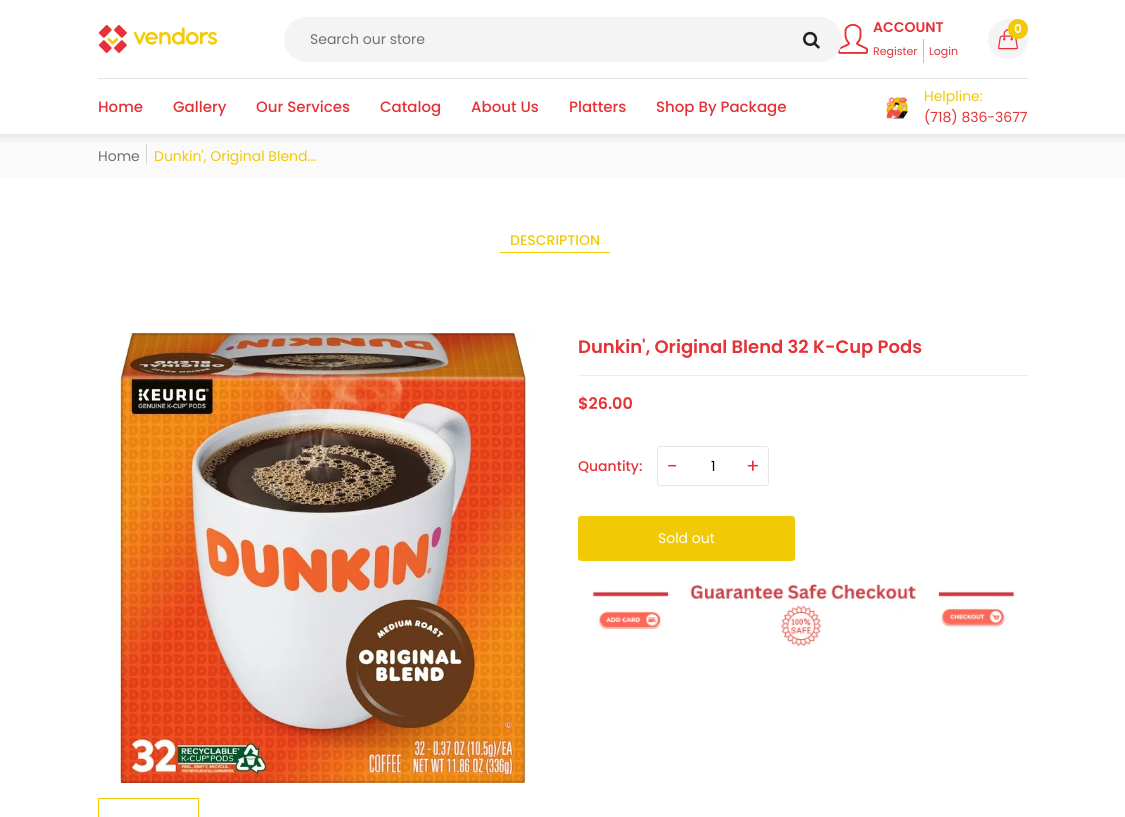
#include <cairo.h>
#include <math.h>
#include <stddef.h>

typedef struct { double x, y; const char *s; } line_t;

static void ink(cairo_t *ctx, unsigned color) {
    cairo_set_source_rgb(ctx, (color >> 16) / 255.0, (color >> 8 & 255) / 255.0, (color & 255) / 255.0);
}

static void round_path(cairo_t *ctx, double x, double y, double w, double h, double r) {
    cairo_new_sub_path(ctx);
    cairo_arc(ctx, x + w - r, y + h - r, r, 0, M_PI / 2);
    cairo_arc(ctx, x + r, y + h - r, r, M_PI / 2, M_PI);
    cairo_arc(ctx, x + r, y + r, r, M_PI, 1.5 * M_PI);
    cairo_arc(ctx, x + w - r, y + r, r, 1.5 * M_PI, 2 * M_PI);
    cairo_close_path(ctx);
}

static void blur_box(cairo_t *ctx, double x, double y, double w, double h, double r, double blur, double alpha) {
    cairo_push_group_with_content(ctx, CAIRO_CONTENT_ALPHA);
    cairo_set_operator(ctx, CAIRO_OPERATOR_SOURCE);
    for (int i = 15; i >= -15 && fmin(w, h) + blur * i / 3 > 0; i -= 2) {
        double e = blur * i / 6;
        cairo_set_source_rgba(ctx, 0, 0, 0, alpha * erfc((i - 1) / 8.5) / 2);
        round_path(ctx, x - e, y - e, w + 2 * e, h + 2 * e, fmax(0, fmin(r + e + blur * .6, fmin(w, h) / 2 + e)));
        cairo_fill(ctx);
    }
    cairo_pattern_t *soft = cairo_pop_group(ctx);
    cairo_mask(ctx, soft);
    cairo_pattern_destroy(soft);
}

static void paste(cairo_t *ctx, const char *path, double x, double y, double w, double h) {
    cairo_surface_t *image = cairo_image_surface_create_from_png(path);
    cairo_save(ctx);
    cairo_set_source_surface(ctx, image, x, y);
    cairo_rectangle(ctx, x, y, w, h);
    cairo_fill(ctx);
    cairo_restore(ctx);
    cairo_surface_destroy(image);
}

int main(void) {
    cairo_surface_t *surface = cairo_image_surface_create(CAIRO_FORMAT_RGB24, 1125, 817);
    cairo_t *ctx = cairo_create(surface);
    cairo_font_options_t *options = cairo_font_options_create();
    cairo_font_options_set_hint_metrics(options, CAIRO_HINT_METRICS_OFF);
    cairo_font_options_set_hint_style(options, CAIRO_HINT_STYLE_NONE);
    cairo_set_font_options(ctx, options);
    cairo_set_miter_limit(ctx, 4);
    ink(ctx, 0xFFFFFF);
    cairo_paint(ctx);
    ink(ctx, 0xFAFAFA);
    cairo_rectangle(ctx, 0, 134, 1125, 44);
    cairo_fill(ctx);
    ink(ctx, 0xD6D6D6);
    cairo_rectangle(ctx, 146, 144, 1, 20);
    cairo_fill(ctx);
    cairo_save(ctx);
    cairo_rectangle(ctx, 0, 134, 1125, 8);
    cairo_clip(ctx);
    ink(ctx, 0x000000);
    blur_box(ctx, 0, 0, 1125, 134, 0, 7.5, 0.15);
    cairo_restore(ctx);
    paste(ctx, "media/1.png", 98, 25, 120, 28);
    paste(ctx, "media/3.png", 838, 23, 30, 31);
    ink(ctx, 0xF4F4F4);
    round_path(ctx, 284, 17, 558, 45, 22.5);
    cairo_fill(ctx);
    cairo_select_font_face(ctx, "Poppins", CAIRO_FONT_SLANT_NORMAL, CAIRO_FONT_WEIGHT_NORMAL);
    cairo_set_font_size(ctx, 14);
    ink(ctx, 0x717171);
    cairo_move_to(ctx, 310, 44);
    cairo_show_text(ctx, "Search our store");
    paste(ctx, "media/2.png", 803, 31, 17, 18);
    cairo_select_font_face(ctx, "Poppins SemiBold", CAIRO_FONT_SLANT_NORMAL, CAIRO_FONT_WEIGHT_NORMAL);
    ink(ctx, 0xE43237);
    cairo_move_to(ctx, 873, 32);
    cairo_show_text(ctx, "ACCOUNT");
    ink(ctx, 0xC3C3C3);
    cairo_rectangle(ctx, 923, 39, 1, 24);
    cairo_fill(ctx);
    cairo_select_font_face(ctx, "Poppins", CAIRO_FONT_SLANT_NORMAL, CAIRO_FONT_WEIGHT_NORMAL);
    cairo_set_font_size(ctx, 11);
    ink(ctx, 0xE43237);
    cairo_move_to(ctx, 873, 55);
    cairo_show_text(ctx, "Register");
    cairo_move_to(ctx, 929, 55);
    cairo_show_text(ctx, "Login");
    ink(ctx, 0xF4F4F4);
    cairo_new_path(ctx);
    cairo_arc(ctx, 1008, 39, 20, 0, 2 * M_PI);
    cairo_fill(ctx);
    paste(ctx, "media/4.png", 998, 29, 20, 21);
    ink(ctx, 0xF1C905);
    cairo_arc(ctx, 1018, 29, 10, 0, 2 * M_PI);
    cairo_fill(ctx);
    cairo_select_font_face(ctx, "Poppins SemiBold", CAIRO_FONT_SLANT_NORMAL, CAIRO_FONT_WEIGHT_NORMAL);
    cairo_set_font_size(ctx, 12);
    ink(ctx, 0xFFFFFF);
    cairo_move_to(ctx, 1014, 33);
    cairo_show_text(ctx, "0");
    ink(ctx, 0xE2E2E2);
    cairo_rectangle(ctx, 98, 78, 930, 1);
    cairo_fill(ctx);
    cairo_select_font_face(ctx, "Poppins Medium", CAIRO_FONT_SLANT_NORMAL, CAIRO_FONT_WEIGHT_NORMAL);
    cairo_set_font_size(ctx, 15);
    ink(ctx, 0xE43237);
    {
        static const line_t items[] = {
            {98, 112, "Home"},
            {173, 112, "Gallery"},
            {256, 112, "Our Services"},
            {380, 112, "Catalog"},
            {471, 112, "About Us"},
            {569, 112, "Platters"},
            {656, 112, "Shop By Package"},
        };
        for (size_t i = 0; i < sizeof items / sizeof *items; i++) {
            cairo_move_to(ctx, items[i].x, items[i].y);
            cairo_show_text(ctx, items[i].s);
        }
    }
    paste(ctx, "media/5.png", 886, 96, 23, 23);
    cairo_select_font_face(ctx, "Poppins", CAIRO_FONT_SLANT_NORMAL, CAIRO_FONT_WEIGHT_NORMAL);
    cairo_set_font_size(ctx, 14);
    ink(ctx, 0xF1C905);
    cairo_move_to(ctx, 924, 101);
    cairo_show_text(ctx, "Helpline:");
    ink(ctx, 0xE43237);
    cairo_move_to(ctx, 924, 122);
    cairo_show_text(ctx, "(718) 836-3677");
    ink(ctx, 0x717171);
    cairo_move_to(ctx, 98, 161);
    cairo_show_text(ctx, "Home");
    ink(ctx, 0xF1C905);
    cairo_move_to(ctx, 154, 161);
    cairo_show_text(ctx, "Dunkin', Original Blend...");
    cairo_rectangle(ctx, 500, 252, 110, 1);
    cairo_fill(ctx);
    cairo_select_font_face(ctx, "Poppins Medium", CAIRO_FONT_SLANT_NORMAL, CAIRO_FONT_WEIGHT_NORMAL);
    cairo_move_to(ctx, 510, 245);
    cairo_show_text(ctx, "DESCRIPTION");
    paste(ctx, "media/6.png", 98, 333, 450, 450);
    cairo_rectangle(ctx, 98.5, 798.5, 100, 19);
    cairo_set_line_width(ctx, 1);
    cairo_stroke(ctx);
    ink(ctx, 0xEDEDED);
    cairo_rectangle(ctx, 578, 375, 450, 1);
    cairo_fill(ctx);
    cairo_select_font_face(ctx, "Poppins SemiBold", CAIRO_FONT_SLANT_NORMAL, CAIRO_FONT_WEIGHT_NORMAL);
    cairo_set_font_size(ctx, 18);
    ink(ctx, 0xE43237);
    cairo_move_to(ctx, 578, 353);
    cairo_show_text(ctx, "Dunkin', Original Blend 32 K-Cup Pods");
    cairo_set_font_size(ctx, 16);
    cairo_move_to(ctx, 578, 409);
    cairo_show_text(ctx, "$26.00");
    cairo_select_font_face(ctx, "Poppins Medium", CAIRO_FONT_SLANT_NORMAL, CAIRO_FONT_WEIGHT_NORMAL);
    cairo_set_font_size(ctx, 14);
    cairo_move_to(ctx, 578, 471);
    cairo_show_text(ctx, "Quantity:");
    round_path(ctx, 657.5, 446.5, 111, 39, 2.5);
    ink(ctx, 0xE6E6E6);
    cairo_stroke(ctx);
    cairo_select_font_face(ctx, "Poppins", CAIRO_FONT_SLANT_NORMAL, CAIRO_FONT_WEIGHT_NORMAL);
    cairo_set_font_size(ctx, 20);
    ink(ctx, 0xE43237);
    cairo_move_to(ctx, 667, 473);
    cairo_show_text(ctx, "-");
    cairo_set_font_size(ctx, 14);
    ink(ctx, 0x000000);
    cairo_move_to(ctx, 711, 471);
    cairo_show_text(ctx, "1");
    cairo_set_font_size(ctx, 20);
    ink(ctx, 0xE43237);
    cairo_move_to(ctx, 746, 473);
    cairo_show_text(ctx, "+");
    ink(ctx, 0xF1C905);
    round_path(ctx, 578, 516, 217, 45, 3);
    cairo_fill(ctx);
    cairo_set_font_size(ctx, 14);
    ink(ctx, 0xFFFFFF);
    cairo_move_to(ctx, 658, 543);
    cairo_show_text(ctx, "Sold out");
    paste(ctx, "media/7.png", 592, 583, 423, 65);
    cairo_surface_write_to_png(surface, "image.png");
    cairo_font_options_destroy(options);
    cairo_destroy(ctx);
    cairo_surface_destroy(surface);
    return 0;
}
